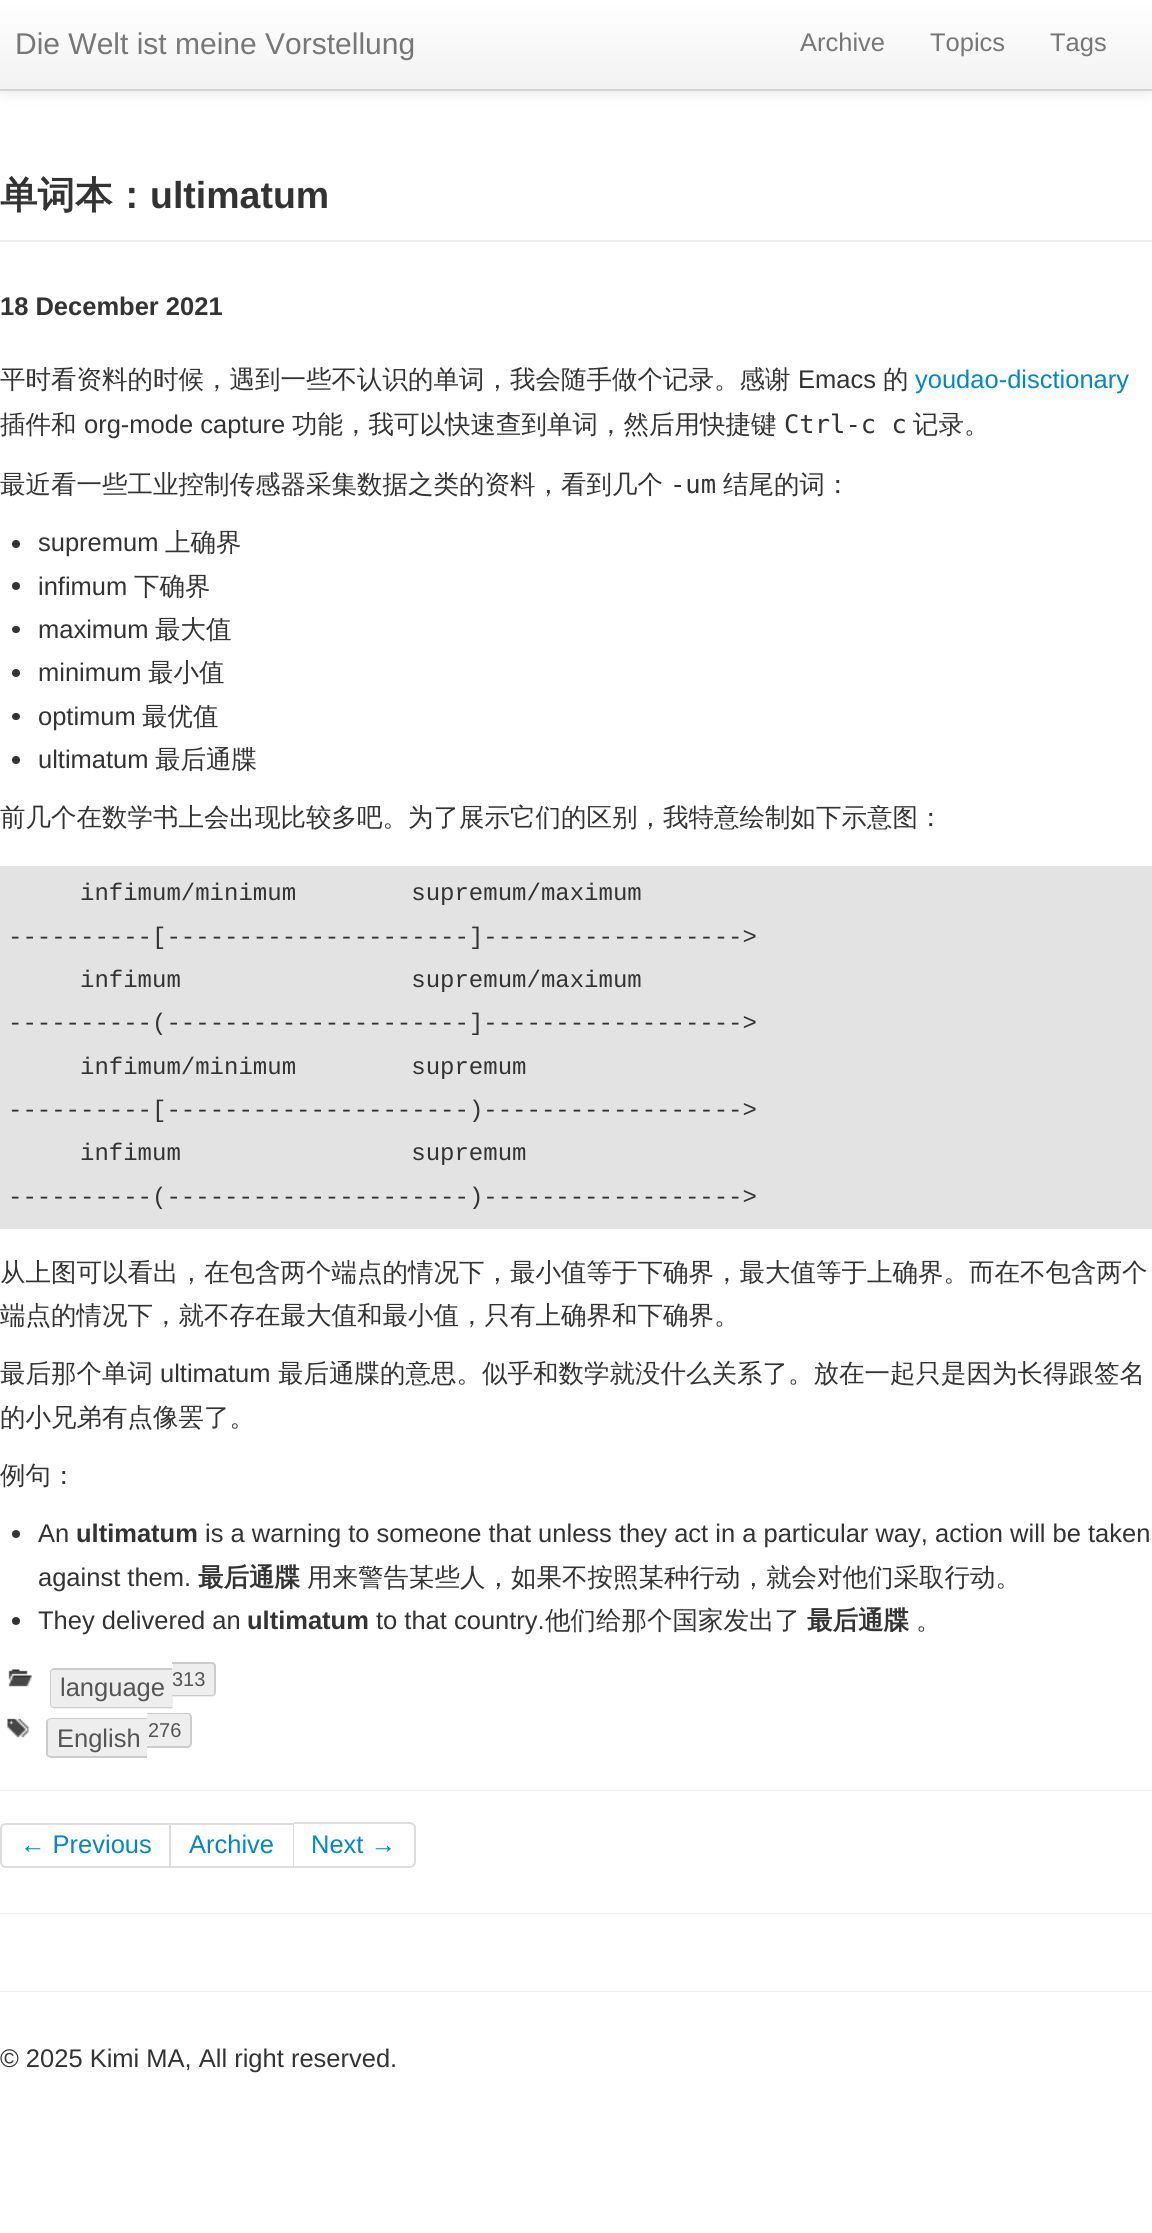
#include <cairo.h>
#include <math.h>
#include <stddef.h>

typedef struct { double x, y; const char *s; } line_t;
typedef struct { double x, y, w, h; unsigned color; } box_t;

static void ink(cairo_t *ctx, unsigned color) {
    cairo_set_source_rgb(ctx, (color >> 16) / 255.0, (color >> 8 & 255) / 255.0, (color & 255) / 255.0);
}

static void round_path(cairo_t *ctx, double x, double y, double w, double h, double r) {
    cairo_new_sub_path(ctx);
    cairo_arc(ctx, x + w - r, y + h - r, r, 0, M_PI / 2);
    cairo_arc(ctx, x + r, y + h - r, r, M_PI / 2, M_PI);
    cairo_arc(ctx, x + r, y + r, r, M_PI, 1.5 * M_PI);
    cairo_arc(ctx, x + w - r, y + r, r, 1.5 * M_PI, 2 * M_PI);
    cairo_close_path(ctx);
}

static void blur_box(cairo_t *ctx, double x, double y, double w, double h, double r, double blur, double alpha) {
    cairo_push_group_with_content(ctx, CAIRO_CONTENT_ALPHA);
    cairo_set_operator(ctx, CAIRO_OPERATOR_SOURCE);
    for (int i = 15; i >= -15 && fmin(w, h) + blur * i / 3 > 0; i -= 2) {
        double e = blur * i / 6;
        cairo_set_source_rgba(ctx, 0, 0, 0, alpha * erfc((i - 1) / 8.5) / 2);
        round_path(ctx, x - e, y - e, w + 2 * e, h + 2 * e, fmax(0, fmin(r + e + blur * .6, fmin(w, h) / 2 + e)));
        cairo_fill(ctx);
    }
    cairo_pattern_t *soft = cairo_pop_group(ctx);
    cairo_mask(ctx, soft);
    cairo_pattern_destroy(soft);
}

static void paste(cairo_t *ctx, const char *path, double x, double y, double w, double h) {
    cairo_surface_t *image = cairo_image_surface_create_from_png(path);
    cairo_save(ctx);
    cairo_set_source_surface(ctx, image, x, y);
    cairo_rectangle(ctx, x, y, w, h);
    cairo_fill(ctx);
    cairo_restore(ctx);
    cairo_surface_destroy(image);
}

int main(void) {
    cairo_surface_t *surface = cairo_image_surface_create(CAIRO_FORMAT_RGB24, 1152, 2233);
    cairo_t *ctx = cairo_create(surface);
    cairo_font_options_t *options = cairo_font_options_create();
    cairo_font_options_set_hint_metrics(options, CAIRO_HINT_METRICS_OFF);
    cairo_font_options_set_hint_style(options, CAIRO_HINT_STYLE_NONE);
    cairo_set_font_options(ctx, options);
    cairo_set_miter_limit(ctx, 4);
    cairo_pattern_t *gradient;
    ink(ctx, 0xFFFFFF);
    cairo_paint(ctx);
    ink(ctx, 0x000000);
    blur_box(ctx, 0, 2, 1152, 90, 0, 7.5, 0.1);
    gradient = cairo_pattern_create_linear(576, 0, 576, 89);
    cairo_pattern_add_color_stop_rgba(gradient, 0, 1, 1, 1, 1);
    cairo_pattern_add_color_stop_rgba(gradient, 1, 0.949, 0.949, 0.949, 1);
    cairo_set_source(ctx, gradient);
    cairo_pattern_destroy(gradient);
    cairo_rectangle(ctx, 0, 0, 1152, 89);
    cairo_fill(ctx);
    ink(ctx, 0xD4D4D4);
    cairo_rectangle(ctx, 0, 89, 1152, 2);
    cairo_fill(ctx);
    cairo_select_font_face(ctx, "Liberation Sans", CAIRO_FONT_SLANT_NORMAL, CAIRO_FONT_WEIGHT_NORMAL);
    cairo_set_font_size(ctx, 30);
    ink(ctx, 0x777777);
    cairo_move_to(ctx, 15, 54);
    cairo_show_text(ctx, "Die Welt ist meine Vorstellung");
    cairo_set_font_size(ctx, 25.5);
    {
        static const line_t items[] = {
            {800, 51, "Archive"},
            {930, 51, "Topics"},
            {1050, 51, "Tags"},
        };
        for (size_t i = 0; i < sizeof items / sizeof *items; i++) {
            cairo_move_to(ctx, items[i].x, items[i].y);
            cairo_show_text(ctx, items[i].s);
        }
    }
    ink(ctx, 0xEEEEEE);
    cairo_rectangle(ctx, 0, 240, 1152, 2);
    cairo_fill(ctx);
    cairo_select_font_face(ctx, "WenQuanYi Zen Hei", CAIRO_FONT_SLANT_NORMAL, CAIRO_FONT_WEIGHT_BOLD);
    cairo_set_font_size(ctx, 37.5);
    ink(ctx, 0x333333);
    cairo_move_to(ctx, 0, 208);
    cairo_show_text(ctx, "单词本：");
    cairo_select_font_face(ctx, "Liberation Sans", CAIRO_FONT_SLANT_NORMAL, CAIRO_FONT_WEIGHT_BOLD);
    cairo_move_to(ctx, 150, 208);
    cairo_show_text(ctx, "ultimatum");
    cairo_set_font_size(ctx, 25.5);
    cairo_move_to(ctx, 0, 315);
    cairo_show_text(ctx, "18 December 2021");
    cairo_select_font_face(ctx, "WenQuanYi Zen Hei Medium", CAIRO_FONT_SLANT_NORMAL, CAIRO_FONT_WEIGHT_NORMAL);
    cairo_move_to(ctx, 0, 388);
    cairo_show_text(ctx, "平时看资料的时候，遇到一些不认识的单词，我会随手做个记录。感谢");
    cairo_select_font_face(ctx, "Liberation Sans", CAIRO_FONT_SLANT_NORMAL, CAIRO_FONT_WEIGHT_NORMAL);
    cairo_move_to(ctx, 798, 388);
    cairo_show_text(ctx, "Emacs");
    cairo_select_font_face(ctx, "WenQuanYi Zen Hei Medium", CAIRO_FONT_SLANT_NORMAL, CAIRO_FONT_WEIGHT_NORMAL);
    cairo_move_to(ctx, 883, 388);
    cairo_show_text(ctx, "的");
    cairo_select_font_face(ctx, "Liberation Sans", CAIRO_FONT_SLANT_NORMAL, CAIRO_FONT_WEIGHT_NORMAL);
    ink(ctx, 0x0088CC);
    cairo_move_to(ctx, 915, 388);
    cairo_show_text(ctx, "youdao-disctionary");
    cairo_select_font_face(ctx, "WenQuanYi Zen Hei Medium", CAIRO_FONT_SLANT_NORMAL, CAIRO_FONT_WEIGHT_NORMAL);
    ink(ctx, 0x333333);
    cairo_move_to(ctx, 0, 433);
    cairo_show_text(ctx, "插件和");
    cairo_select_font_face(ctx, "Liberation Sans", CAIRO_FONT_SLANT_NORMAL, CAIRO_FONT_WEIGHT_NORMAL);
    cairo_move_to(ctx, 84, 433);
    cairo_show_text(ctx, "org-mode capture");
    cairo_select_font_face(ctx, "WenQuanYi Zen Hei Medium", CAIRO_FONT_SLANT_NORMAL, CAIRO_FONT_WEIGHT_NORMAL);
    cairo_move_to(ctx, 292, 433);
    cairo_show_text(ctx, "功能，我可以快速查到单词，然后用快捷键");
    cairo_select_font_face(ctx, "DejaVu Sans Mono", CAIRO_FONT_SLANT_NORMAL, CAIRO_FONT_WEIGHT_NORMAL);
    cairo_move_to(ctx, 784, 433);
    cairo_show_text(ctx, "Ctrl-c c");
    cairo_select_font_face(ctx, "WenQuanYi Zen Hei Medium", CAIRO_FONT_SLANT_NORMAL, CAIRO_FONT_WEIGHT_NORMAL);
    cairo_move_to(ctx, 913, 433);
    cairo_show_text(ctx, "记录。");
    cairo_move_to(ctx, 0, 493);
    cairo_show_text(ctx, "最近看一些工业控制传感器采集数据之类的资料，看到几个");
    cairo_select_font_face(ctx, "DejaVu Sans Mono", CAIRO_FONT_SLANT_NORMAL, CAIRO_FONT_WEIGHT_NORMAL);
    cairo_move_to(ctx, 670, 493);
    cairo_show_text(ctx, "-um");
    cairo_select_font_face(ctx, "WenQuanYi Zen Hei Medium", CAIRO_FONT_SLANT_NORMAL, CAIRO_FONT_WEIGHT_NORMAL);
    cairo_move_to(ctx, 723, 493);
    cairo_show_text(ctx, "结尾的词：");
    cairo_new_path(ctx);
    cairo_arc(ctx, 16, 544, 4, 0, 2 * M_PI);
    cairo_fill(ctx);
    cairo_select_font_face(ctx, "Liberation Sans", CAIRO_FONT_SLANT_NORMAL, CAIRO_FONT_WEIGHT_NORMAL);
    cairo_move_to(ctx, 38, 551);
    cairo_show_text(ctx, "supremum");
    cairo_select_font_face(ctx, "WenQuanYi Zen Hei Medium", CAIRO_FONT_SLANT_NORMAL, CAIRO_FONT_WEIGHT_NORMAL);
    cairo_move_to(ctx, 165, 551);
    cairo_show_text(ctx, "上确界");
    cairo_new_path(ctx);
    cairo_arc(ctx, 16, 586, 4, 0, 2 * M_PI);
    cairo_fill(ctx);
    cairo_select_font_face(ctx, "Liberation Sans", CAIRO_FONT_SLANT_NORMAL, CAIRO_FONT_WEIGHT_NORMAL);
    cairo_move_to(ctx, 38, 595);
    cairo_show_text(ctx, "infimum");
    cairo_select_font_face(ctx, "WenQuanYi Zen Hei Medium", CAIRO_FONT_SLANT_NORMAL, CAIRO_FONT_WEIGHT_NORMAL);
    cairo_move_to(ctx, 134, 595);
    cairo_show_text(ctx, "下确界");
    round_path(ctx, 12, 626, 8, 7, 3.5);
    cairo_fill(ctx);
    cairo_select_font_face(ctx, "Liberation Sans", CAIRO_FONT_SLANT_NORMAL, CAIRO_FONT_WEIGHT_NORMAL);
    cairo_move_to(ctx, 38, 638);
    cairo_show_text(ctx, "maximum");
    cairo_select_font_face(ctx, "WenQuanYi Zen Hei Medium", CAIRO_FONT_SLANT_NORMAL, CAIRO_FONT_WEIGHT_NORMAL);
    cairo_move_to(ctx, 155, 638);
    cairo_show_text(ctx, "最大值");
    cairo_new_path(ctx);
    cairo_arc(ctx, 16, 673, 4, 0, 2 * M_PI);
    cairo_fill(ctx);
    cairo_select_font_face(ctx, "Liberation Sans", CAIRO_FONT_SLANT_NORMAL, CAIRO_FONT_WEIGHT_NORMAL);
    cairo_move_to(ctx, 38, 681);
    cairo_show_text(ctx, "minimum");
    cairo_select_font_face(ctx, "WenQuanYi Zen Hei Medium", CAIRO_FONT_SLANT_NORMAL, CAIRO_FONT_WEIGHT_NORMAL);
    cairo_move_to(ctx, 148, 681);
    cairo_show_text(ctx, "最小值");
    round_path(ctx, 12, 713, 8, 7, 3.5);
    cairo_fill(ctx);
    cairo_select_font_face(ctx, "Liberation Sans", CAIRO_FONT_SLANT_NORMAL, CAIRO_FONT_WEIGHT_NORMAL);
    cairo_move_to(ctx, 38, 725);
    cairo_show_text(ctx, "optimum");
    cairo_select_font_face(ctx, "WenQuanYi Zen Hei Medium", CAIRO_FONT_SLANT_NORMAL, CAIRO_FONT_WEIGHT_NORMAL);
    cairo_move_to(ctx, 142, 725);
    cairo_show_text(ctx, "最优值");
    cairo_new_path(ctx);
    cairo_arc(ctx, 16, 760, 4, 0, 2 * M_PI);
    cairo_fill(ctx);
    cairo_select_font_face(ctx, "Liberation Sans", CAIRO_FONT_SLANT_NORMAL, CAIRO_FONT_WEIGHT_NORMAL);
    cairo_move_to(ctx, 38, 768);
    cairo_show_text(ctx, "ultimatum");
    cairo_select_font_face(ctx, "WenQuanYi Zen Hei Medium", CAIRO_FONT_SLANT_NORMAL, CAIRO_FONT_WEIGHT_NORMAL);
    cairo_move_to(ctx, 155, 768);
    cairo_show_text(ctx, "最后通牒");
    cairo_move_to(ctx, 0, 826);
    cairo_show_text(ctx, "前几个在数学书上会出现比较多吧。为了展示它们的区别，我特意绘制如下示意图：");
    ink(ctx, 0xE3E3E3);
    cairo_rectangle(ctx, 0, 866, 1152, 363);
    cairo_fill(ctx);
    cairo_select_font_face(ctx, "Liberation Mono", CAIRO_FONT_SLANT_NORMAL, CAIRO_FONT_WEIGHT_NORMAL);
    cairo_set_font_size(ctx, 24);
    ink(ctx, 0x333333);
    {
        static const line_t items[] = {
            {80, 900, "infimum/minimum        supremum/maximum"},
            {8, 944, "----------[---------------------]------------------>"},
            {80, 987, "infimum                supremum/maximum"},
            {8, 1030, "----------(---------------------]------------------>"},
            {80, 1074, "infimum/minimum        supremum"},
            {8, 1117, "----------[---------------------)------------------>"},
            {80, 1160, "infimum                supremum"},
            {8, 1204, "----------(---------------------)------------------>"},
        };
        for (size_t i = 0; i < sizeof items / sizeof *items; i++) {
            cairo_move_to(ctx, items[i].x, items[i].y);
            cairo_show_text(ctx, items[i].s);
        }
    }
    cairo_select_font_face(ctx, "WenQuanYi Zen Hei Medium", CAIRO_FONT_SLANT_NORMAL, CAIRO_FONT_WEIGHT_NORMAL);
    cairo_set_font_size(ctx, 25.5);
    {
        static const line_t items[] = {
            {0, 1281, "从上图可以看出，在包含两个端点的情况下，最小值等于下确界，最大值等于上确界。而在不包含两个"},
            {0, 1324, "端点的情况下，就不存在最大值和最小值，只有上确界和下确界。"},
            {0, 1382, "最后那个单词"},
        };
        for (size_t i = 0; i < sizeof items / sizeof *items; i++) {
            cairo_move_to(ctx, items[i].x, items[i].y);
            cairo_show_text(ctx, items[i].s);
        }
    }
    cairo_select_font_face(ctx, "Liberation Sans", CAIRO_FONT_SLANT_NORMAL, CAIRO_FONT_WEIGHT_NORMAL);
    cairo_move_to(ctx, 160, 1382);
    cairo_show_text(ctx, "ultimatum");
    cairo_select_font_face(ctx, "WenQuanYi Zen Hei Medium", CAIRO_FONT_SLANT_NORMAL, CAIRO_FONT_WEIGHT_NORMAL);
    {
        static const line_t items[] = {
            {278, 1382, "最后通牒的意思。似乎和数学就没什么关系了。放在一起只是因为长得跟签名"},
            {0, 1426, "的小兄弟有点像罢了。"},
            {0, 1484, "例句："},
        };
        for (size_t i = 0; i < sizeof items / sizeof *items; i++) {
            cairo_move_to(ctx, items[i].x, items[i].y);
            cairo_show_text(ctx, items[i].s);
        }
    }
    cairo_new_path(ctx);
    cairo_arc(ctx, 16, 1534, 4, 0, 2 * M_PI);
    cairo_fill(ctx);
    cairo_select_font_face(ctx, "Liberation Sans", CAIRO_FONT_SLANT_NORMAL, CAIRO_FONT_WEIGHT_NORMAL);
    cairo_move_to(ctx, 38, 1542);
    cairo_show_text(ctx, "An");
    cairo_select_font_face(ctx, "Liberation Sans", CAIRO_FONT_SLANT_NORMAL, CAIRO_FONT_WEIGHT_BOLD);
    cairo_move_to(ctx, 76, 1542);
    cairo_show_text(ctx, "ultimatum");
    cairo_select_font_face(ctx, "Liberation Sans", CAIRO_FONT_SLANT_NORMAL, CAIRO_FONT_WEIGHT_NORMAL);
    cairo_move_to(ctx, 205, 1542);
    cairo_show_text(ctx, "is a warning to someone that unless they act in a particular way, action will be taken");
    cairo_move_to(ctx, 38, 1586);
    cairo_show_text(ctx, "against them.");
    cairo_select_font_face(ctx, "WenQuanYi Zen Hei", CAIRO_FONT_SLANT_NORMAL, CAIRO_FONT_WEIGHT_BOLD);
    cairo_move_to(ctx, 198, 1586);
    cairo_show_text(ctx, "最后通牒");
    cairo_select_font_face(ctx, "WenQuanYi Zen Hei Medium", CAIRO_FONT_SLANT_NORMAL, CAIRO_FONT_WEIGHT_NORMAL);
    cairo_move_to(ctx, 307, 1586);
    cairo_show_text(ctx, "用来警告某些人，如果不按照某种行动，就会对他们采取行动。");
    cairo_new_path(ctx);
    cairo_arc(ctx, 16, 1621, 4, 0, 2 * M_PI);
    cairo_fill(ctx);
    cairo_select_font_face(ctx, "Liberation Sans", CAIRO_FONT_SLANT_NORMAL, CAIRO_FONT_WEIGHT_NORMAL);
    cairo_move_to(ctx, 38, 1629);
    cairo_show_text(ctx, "They delivered an");
    cairo_select_font_face(ctx, "Liberation Sans", CAIRO_FONT_SLANT_NORMAL, CAIRO_FONT_WEIGHT_BOLD);
    cairo_move_to(ctx, 247, 1629);
    cairo_show_text(ctx, "ultimatum");
    cairo_select_font_face(ctx, "Liberation Sans", CAIRO_FONT_SLANT_NORMAL, CAIRO_FONT_WEIGHT_NORMAL);
    cairo_move_to(ctx, 376, 1629);
    cairo_show_text(ctx, "to that country.");
    cairo_select_font_face(ctx, "WenQuanYi Zen Hei Medium", CAIRO_FONT_SLANT_NORMAL, CAIRO_FONT_WEIGHT_NORMAL);
    cairo_move_to(ctx, 545, 1629);
    cairo_show_text(ctx, "他们给那个国家发出了");
    cairo_select_font_face(ctx, "WenQuanYi Zen Hei", CAIRO_FONT_SLANT_NORMAL, CAIRO_FONT_WEIGHT_BOLD);
    cairo_move_to(ctx, 807, 1629);
    cairo_show_text(ctx, "最后通牒");
    cairo_select_font_face(ctx, "WenQuanYi Zen Hei Medium", CAIRO_FONT_SLANT_NORMAL, CAIRO_FONT_WEIGHT_NORMAL);
    cairo_move_to(ctx, 916, 1629);
    cairo_show_text(ctx, "。");
    paste(ctx, "media/1.png", 8, 1669, 24, 18);
    ink(ctx, 0xEEEEEE);
    cairo_new_path(ctx);
    cairo_move_to(ctx, 55, 1668);
    cairo_line_to(ctx, 173, 1668);
    cairo_line_to(ctx, 173, 1709);
    cairo_line_to(ctx, 55, 1709);
    cairo_curve_to(ctx, 52, 1709, 50, 1707, 50, 1704);
    cairo_line_to(ctx, 50, 1673);
    cairo_curve_to(ctx, 50, 1670, 52, 1668, 55, 1668);
    cairo_close_path(ctx);
    cairo_fill(ctx);
    ink(ctx, 0xCCCCCC);
    cairo_set_fill_rule(ctx, CAIRO_FILL_RULE_EVEN_ODD);
    cairo_new_path(ctx);
    cairo_move_to(ctx, 54, 1668);
    cairo_line_to(ctx, 172, 1668);
    cairo_line_to(ctx, 172, 1708);
    cairo_line_to(ctx, 54, 1708);
    cairo_curve_to(ctx, 52, 1708, 50, 1706, 50, 1704);
    cairo_line_to(ctx, 50, 1672);
    cairo_curve_to(ctx, 50, 1670, 52, 1668, 54, 1668);
    cairo_close_path(ctx);
    cairo_move_to(ctx, 54, 1670);
    cairo_line_to(ctx, 172, 1670);
    cairo_line_to(ctx, 172, 1707);
    cairo_line_to(ctx, 54, 1707);
    cairo_curve_to(ctx, 52, 1707, 51, 1706, 51, 1704);
    cairo_line_to(ctx, 51, 1672);
    cairo_curve_to(ctx, 51, 1671, 52, 1670, 54, 1670);
    cairo_close_path(ctx);
    cairo_fill(ctx);
    cairo_select_font_face(ctx, "Liberation Sans", CAIRO_FONT_SLANT_NORMAL, CAIRO_FONT_WEIGHT_NORMAL);
    ink(ctx, 0x555555);
    cairo_move_to(ctx, 60, 1696);
    cairo_show_text(ctx, "language");
    ink(ctx, 0xEEEEEE);
    cairo_new_path(ctx);
    cairo_move_to(ctx, 173, 1662);
    cairo_line_to(ctx, 211, 1662);
    cairo_curve_to(ctx, 214, 1662, 216, 1664, 216, 1667);
    cairo_line_to(ctx, 216, 1692);
    cairo_curve_to(ctx, 216, 1695, 214, 1697, 211, 1697);
    cairo_line_to(ctx, 173, 1697);
    cairo_close_path(ctx);
    cairo_fill(ctx);
    ink(ctx, 0xCCCCCC);
    cairo_new_path(ctx);
    cairo_move_to(ctx, 172, 1662);
    cairo_line_to(ctx, 212, 1662);
    cairo_curve_to(ctx, 214, 1662, 216, 1664, 216, 1666);
    cairo_line_to(ctx, 216, 1692);
    cairo_curve_to(ctx, 216, 1694, 214, 1696, 212, 1696);
    cairo_line_to(ctx, 172, 1696);
    cairo_close_path(ctx);
    cairo_move_to(ctx, 172, 1664);
    cairo_line_to(ctx, 212, 1664);
    cairo_curve_to(ctx, 213, 1664, 214, 1665, 214, 1666);
    cairo_line_to(ctx, 214, 1692);
    cairo_curve_to(ctx, 214, 1694, 213, 1695, 212, 1695);
    cairo_line_to(ctx, 172, 1695);
    cairo_close_path(ctx);
    cairo_fill(ctx);
    cairo_set_font_size(ctx, 20);
    ink(ctx, 0x555555);
    cairo_move_to(ctx, 172, 1686);
    cairo_show_text(ctx, "313");
    paste(ctx, "media/2.png", 7, 1718, 22, 20);
    ink(ctx, 0xEEEEEE);
    cairo_new_path(ctx);
    cairo_move_to(ctx, 52, 1718);
    cairo_line_to(ctx, 147, 1718);
    cairo_line_to(ctx, 147, 1758);
    cairo_line_to(ctx, 52, 1758);
    cairo_curve_to(ctx, 49, 1758, 47, 1756, 47, 1753);
    cairo_line_to(ctx, 47, 1723);
    cairo_curve_to(ctx, 47, 1720, 49, 1718, 52, 1718);
    cairo_close_path(ctx);
    cairo_fill(ctx);
    ink(ctx, 0xCCCCCC);
    cairo_new_path(ctx);
    cairo_move_to(ctx, 51, 1718);
    cairo_line_to(ctx, 147, 1718);
    cairo_line_to(ctx, 147, 1758);
    cairo_line_to(ctx, 51, 1758);
    cairo_curve_to(ctx, 49, 1758, 46, 1756, 46, 1754);
    cairo_line_to(ctx, 46, 1722);
    cairo_curve_to(ctx, 46, 1720, 49, 1718, 51, 1718);
    cairo_close_path(ctx);
    cairo_move_to(ctx, 51, 1719);
    cairo_line_to(ctx, 147, 1719);
    cairo_line_to(ctx, 147, 1756);
    cairo_line_to(ctx, 51, 1756);
    cairo_curve_to(ctx, 49, 1756, 48, 1755, 48, 1754);
    cairo_line_to(ctx, 48, 1722);
    cairo_curve_to(ctx, 48, 1720, 49, 1719, 51, 1719);
    cairo_close_path(ctx);
    cairo_fill(ctx);
    cairo_set_font_size(ctx, 25.5);
    ink(ctx, 0x555555);
    cairo_move_to(ctx, 57, 1747);
    cairo_show_text(ctx, "English");
    ink(ctx, 0xEEEEEE);
    cairo_new_path(ctx);
    cairo_move_to(ctx, 147, 1713);
    cairo_line_to(ctx, 187, 1713);
    cairo_curve_to(ctx, 190, 1713, 192, 1715, 192, 1718);
    cairo_line_to(ctx, 192, 1743);
    cairo_curve_to(ctx, 192, 1746, 190, 1748, 187, 1748);
    cairo_line_to(ctx, 147, 1748);
    cairo_close_path(ctx);
    cairo_fill(ctx);
    ink(ctx, 0xCCCCCC);
    cairo_new_path(ctx);
    cairo_move_to(ctx, 147, 1713);
    cairo_line_to(ctx, 188, 1713);
    cairo_curve_to(ctx, 190, 1713, 192, 1715, 192, 1718);
    cairo_line_to(ctx, 192, 1743);
    cairo_curve_to(ctx, 192, 1745, 190, 1748, 188, 1748);
    cairo_line_to(ctx, 147, 1748);
    cairo_close_path(ctx);
    cairo_move_to(ctx, 147, 1714);
    cairo_line_to(ctx, 188, 1714);
    cairo_curve_to(ctx, 189, 1714, 190, 1716, 190, 1718);
    cairo_line_to(ctx, 190, 1743);
    cairo_curve_to(ctx, 190, 1745, 189, 1746, 188, 1746);
    cairo_line_to(ctx, 147, 1746);
    cairo_close_path(ctx);
    cairo_fill(ctx);
    cairo_set_font_size(ctx, 20);
    ink(ctx, 0x555555);
    cairo_move_to(ctx, 148, 1737);
    cairo_show_text(ctx, "276");
    ink(ctx, 0xEEEEEE);
    cairo_rectangle(ctx, 0, 1790, 1152, 1);
    cairo_fill(ctx);
    cairo_new_path(ctx);
    cairo_move_to(ctx, 6, 1824);
    cairo_line_to(ctx, 170, 1824);
    cairo_line_to(ctx, 170, 1867);
    cairo_line_to(ctx, 6, 1867);
    cairo_curve_to(ctx, 3, 1867, 1, 1865, 1, 1862);
    cairo_line_to(ctx, 1, 1829);
    cairo_curve_to(ctx, 1, 1826, 3, 1824, 6, 1824);
    cairo_close_path(ctx);
    ink(ctx, 0xDDDDDD);
    cairo_stroke(ctx);
    cairo_set_font_size(ctx, 25.5);
    ink(ctx, 0x0088CC);
    cairo_move_to(ctx, 20, 1853);
    cairo_show_text(ctx, "← Previous");
    {
        static const box_t items[] = {
            {171, 1823, 123, 2, 0xDDDDDD},
            {293, 1823, 1, 45, 0xDDDDDD},
            {171, 1866, 123, 2, 0xDDDDDD},
        };
        for (size_t i = 0; i < sizeof items / sizeof *items; i++) {
            ink(ctx, items[i].color);
            cairo_rectangle(ctx, items[i].x, items[i].y, items[i].w, items[i].h);
            cairo_fill(ctx);
        }
    }
    ink(ctx, 0x0088CC);
    cairo_move_to(ctx, 189, 1853);
    cairo_show_text(ctx, "Archive");
    ink(ctx, 0xDDDDDD);
    cairo_new_path(ctx);
    cairo_move_to(ctx, 294, 1822);
    cairo_line_to(ctx, 410, 1822);
    cairo_curve_to(ctx, 413, 1822, 416, 1825, 416, 1828);
    cairo_line_to(ctx, 416, 1862);
    cairo_curve_to(ctx, 416, 1865, 413, 1868, 410, 1868);
    cairo_line_to(ctx, 294, 1868);
    cairo_close_path(ctx);
    cairo_move_to(ctx, 294, 1824);
    cairo_line_to(ctx, 410, 1824);
    cairo_curve_to(ctx, 412, 1824, 414, 1826, 414, 1828);
    cairo_line_to(ctx, 414, 1862);
    cairo_curve_to(ctx, 414, 1864, 412, 1866, 410, 1866);
    cairo_line_to(ctx, 294, 1866);
    cairo_close_path(ctx);
    cairo_fill(ctx);
    ink(ctx, 0x0088CC);
    cairo_move_to(ctx, 311, 1853);
    cairo_show_text(ctx, "Next →");
    ink(ctx, 0xEEEEEE);
    cairo_rectangle(ctx, 0, 1913, 1152, 1);
    cairo_fill(ctx);
    cairo_rectangle(ctx, 0, 1991, 1152, 1);
    cairo_fill(ctx);
    ink(ctx, 0x333333);
    cairo_move_to(ctx, 0, 2067);
    cairo_show_text(ctx, "© 2025 Kimi MA, All right reserved.");
    cairo_surface_write_to_png(surface, "image.png");
    cairo_font_options_destroy(options);
    cairo_destroy(ctx);
    cairo_surface_destroy(surface);
    return 0;
}
